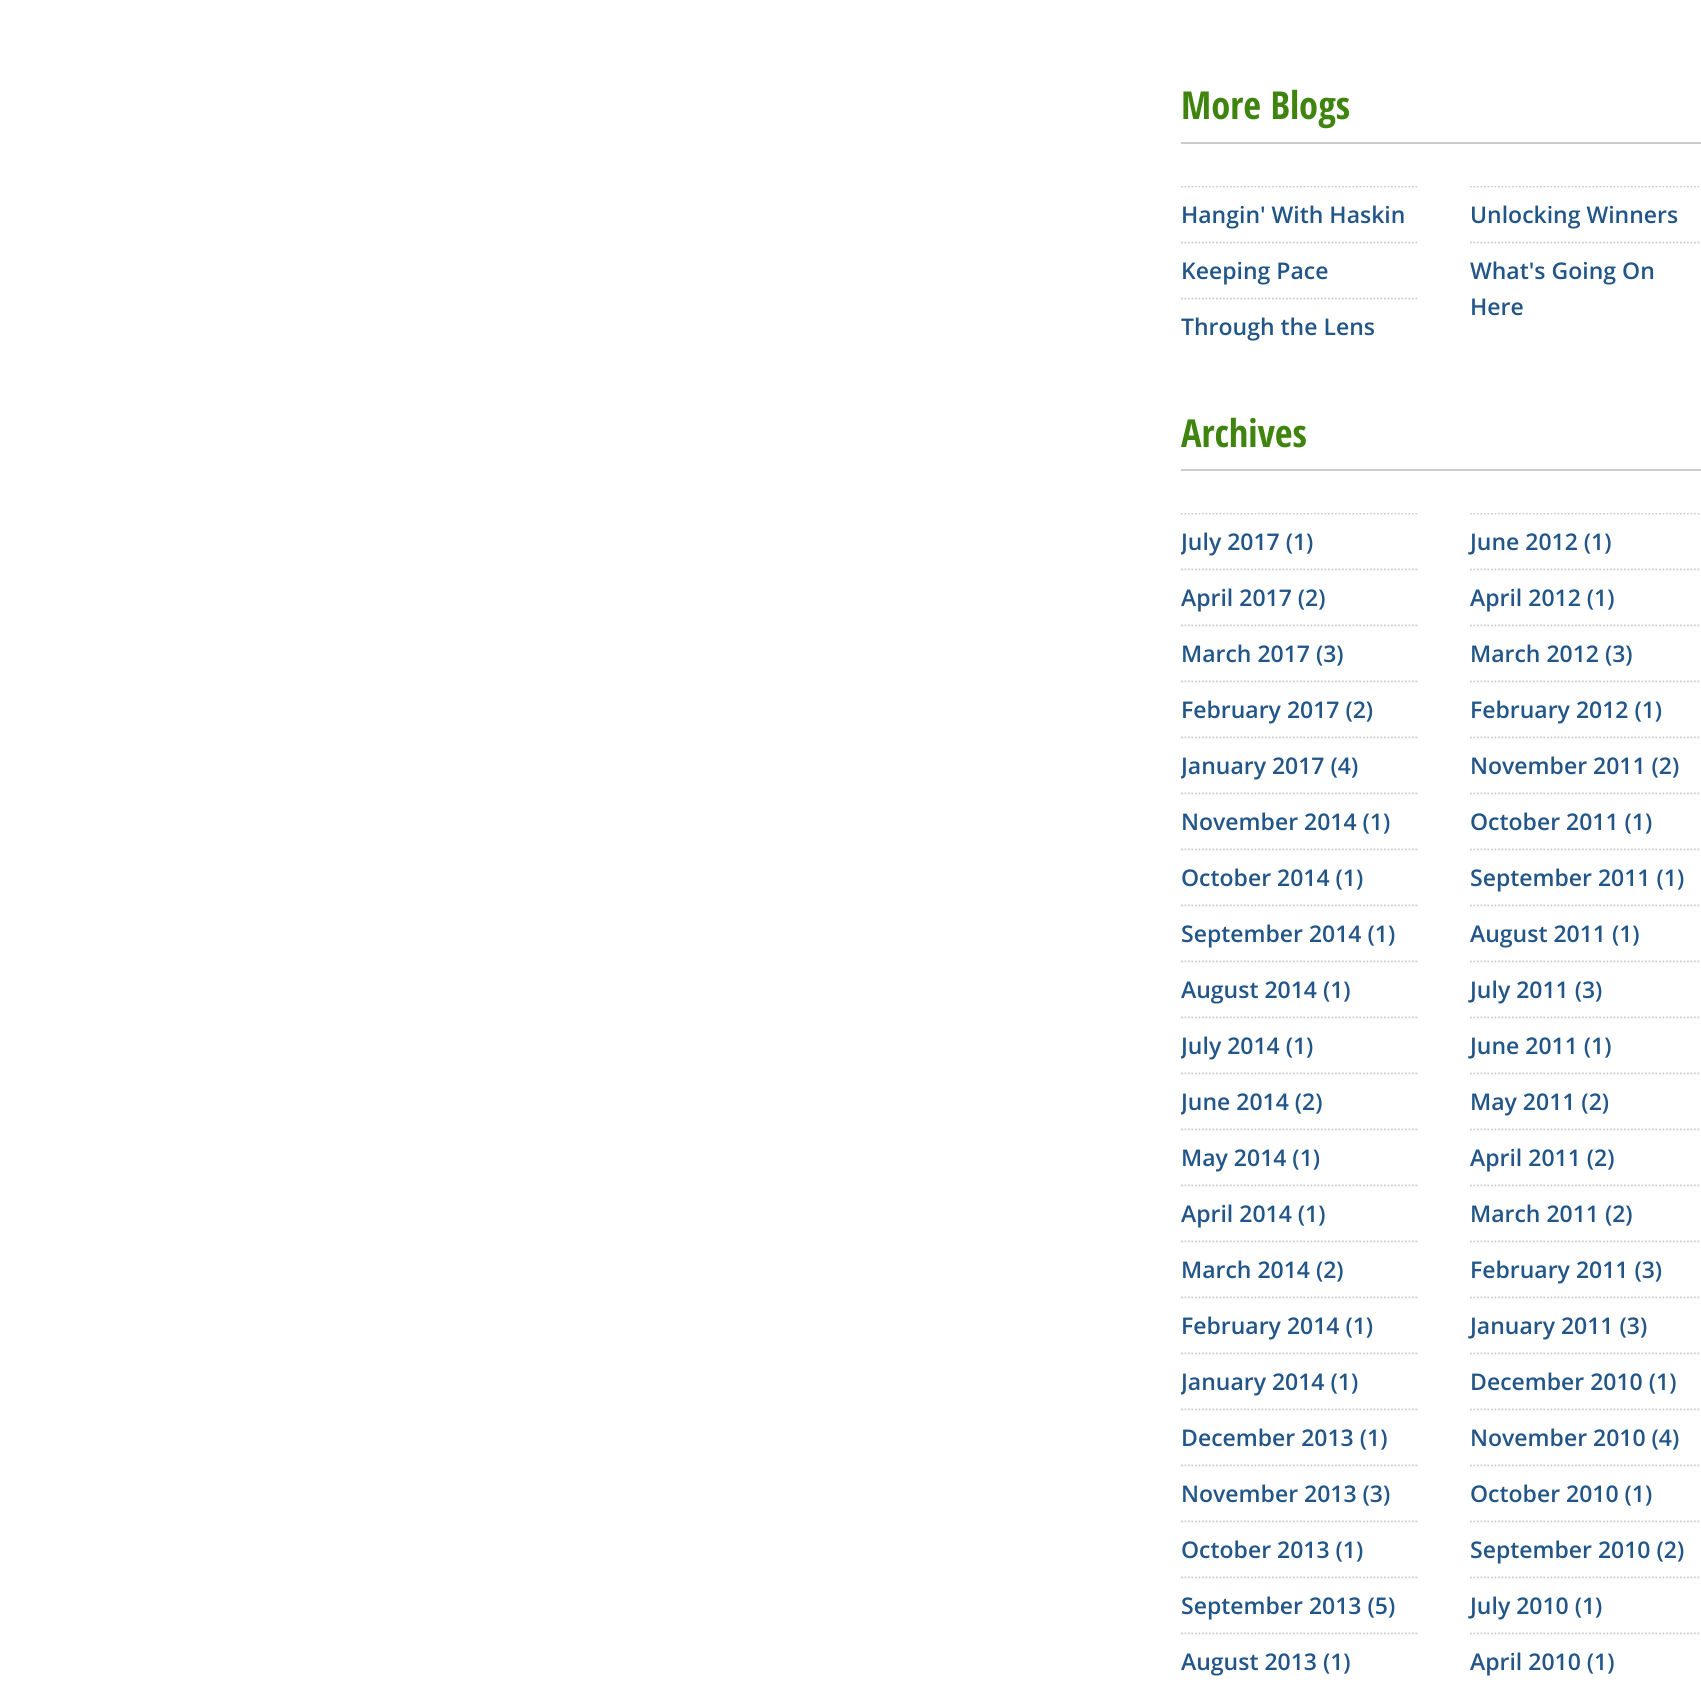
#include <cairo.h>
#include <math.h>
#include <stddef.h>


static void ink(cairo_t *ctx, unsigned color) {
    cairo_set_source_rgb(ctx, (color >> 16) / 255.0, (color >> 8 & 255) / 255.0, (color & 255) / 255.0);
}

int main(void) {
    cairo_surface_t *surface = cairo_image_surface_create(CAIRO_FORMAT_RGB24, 1701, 1683);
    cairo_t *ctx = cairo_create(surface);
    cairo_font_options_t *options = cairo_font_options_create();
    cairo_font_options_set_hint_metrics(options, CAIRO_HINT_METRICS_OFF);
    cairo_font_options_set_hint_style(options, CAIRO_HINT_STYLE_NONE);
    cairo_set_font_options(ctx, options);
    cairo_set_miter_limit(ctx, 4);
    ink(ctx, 0xFFFFFF);
    cairo_paint(ctx);
    ink(ctx, 0xCCCCCC);
    cairo_rectangle(ctx, 1181, 142, 520, 2);
    cairo_fill(ctx);
    cairo_select_font_face(ctx, "Open Sans Condensed", CAIRO_FONT_SLANT_NORMAL, CAIRO_FONT_WEIGHT_BOLD);
    cairo_set_font_size(ctx, 38.5);
    ink(ctx, 0x3E840F);
    cairo_move_to(ctx, 1181, 119);
    cairo_show_text(ctx, "More Blogs");
    cairo_save(ctx);
    cairo_rectangle(ctx, 1181, 186, 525, 168);
    cairo_clip(ctx);
    cairo_new_path(ctx);
    cairo_move_to(ctx, 1181, 186.5);
    cairo_line_to(ctx, 1417.5, 186.5);
    ink(ctx, 0xCCCCCC);
    cairo_set_line_width(ctx, 1.8);
    cairo_set_dash(ctx, (double[]){1.75, 1.75}, 2, 0);
    cairo_stroke(ctx);
    cairo_restore(ctx);
    cairo_select_font_face(ctx, "Open Sans SemiBold", CAIRO_FONT_SLANT_NORMAL, CAIRO_FONT_WEIGHT_NORMAL);
    cairo_set_font_size(ctx, 23);
    ink(ctx, 0x225588);
    cairo_move_to(ctx, 1181, 223);
    cairo_show_text(ctx, "Hangin' With Haskin");
    cairo_save(ctx);
    cairo_rectangle(ctx, 1181, 186, 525, 168);
    cairo_clip(ctx);
    cairo_new_path(ctx);
    cairo_move_to(ctx, 1470, 186.5);
    cairo_line_to(ctx, 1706, 186.5);
    ink(ctx, 0xCCCCCC);
    cairo_set_line_width(ctx, 1.8);
    cairo_set_dash(ctx, (double[]){1.75, 1.75}, 2, 0);
    cairo_stroke(ctx);
    cairo_restore(ctx);
    cairo_move_to(ctx, 1470, 223);
    cairo_show_text(ctx, "Unlocking Winners");
    cairo_new_path(ctx);
    cairo_move_to(ctx, 1181, 242.5);
    cairo_line_to(ctx, 1417.5, 242.5);
    ink(ctx, 0xCCCCCC);
    cairo_set_line_width(ctx, 1.8);
    cairo_set_dash(ctx, (double[]){1.75, 1.75}, 2, 0);
    cairo_stroke(ctx);
    ink(ctx, 0x225588);
    cairo_move_to(ctx, 1181, 279);
    cairo_show_text(ctx, "Keeping Pace");
    cairo_new_path(ctx);
    cairo_move_to(ctx, 1470, 242.5);
    cairo_line_to(ctx, 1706, 242.5);
    ink(ctx, 0xCCCCCC);
    cairo_stroke(ctx);
    ink(ctx, 0x225588);
    cairo_move_to(ctx, 1470, 279);
    cairo_show_text(ctx, "What's Going On");
    cairo_move_to(ctx, 1470, 315);
    cairo_show_text(ctx, "Here");
    cairo_new_path(ctx);
    cairo_move_to(ctx, 1181, 298.5);
    cairo_line_to(ctx, 1417.5, 298.5);
    ink(ctx, 0xCCCCCC);
    cairo_stroke(ctx);
    ink(ctx, 0x225588);
    cairo_move_to(ctx, 1181, 335);
    cairo_show_text(ctx, "Through the Lens");
    ink(ctx, 0xCCCCCC);
    cairo_rectangle(ctx, 1181, 469, 520, 2);
    cairo_fill(ctx);
    cairo_select_font_face(ctx, "Open Sans Condensed", CAIRO_FONT_SLANT_NORMAL, CAIRO_FONT_WEIGHT_BOLD);
    cairo_set_font_size(ctx, 38.5);
    ink(ctx, 0x3E840F);
    cairo_move_to(ctx, 1181, 447);
    cairo_show_text(ctx, "Archives");
    cairo_save(ctx);
    cairo_rectangle(ctx, 1181, 513, 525, 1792);
    cairo_clip(ctx);
    cairo_new_path(ctx);
    cairo_move_to(ctx, 1181, 513.5);
    cairo_line_to(ctx, 1417.5, 513.5);
    ink(ctx, 0xCCCCCC);
    cairo_stroke(ctx);
    cairo_select_font_face(ctx, "Open Sans SemiBold", CAIRO_FONT_SLANT_NORMAL, CAIRO_FONT_WEIGHT_NORMAL);
    cairo_set_font_size(ctx, 23);
    ink(ctx, 0x225588);
    cairo_move_to(ctx, 1181, 550);
    cairo_show_text(ctx, "July 2017 (1)");
    cairo_new_path(ctx);
    cairo_move_to(ctx, 1470, 513.5);
    cairo_line_to(ctx, 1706, 513.5);
    ink(ctx, 0xCCCCCC);
    cairo_stroke(ctx);
    cairo_restore(ctx);
    cairo_select_font_face(ctx, "Open Sans SemiBold", CAIRO_FONT_SLANT_NORMAL, CAIRO_FONT_WEIGHT_NORMAL);
    cairo_set_font_size(ctx, 23);
    ink(ctx, 0x225588);
    cairo_move_to(ctx, 1470, 550);
    cairo_show_text(ctx, "June 2012 (1)");
    cairo_new_path(ctx);
    cairo_move_to(ctx, 1181, 569.5);
    cairo_line_to(ctx, 1417.5, 569.5);
    ink(ctx, 0xCCCCCC);
    cairo_stroke(ctx);
    ink(ctx, 0x225588);
    cairo_move_to(ctx, 1181, 606);
    cairo_show_text(ctx, "April 2017 (2)");
    cairo_new_path(ctx);
    cairo_move_to(ctx, 1470, 569.5);
    cairo_line_to(ctx, 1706, 569.5);
    ink(ctx, 0xCCCCCC);
    cairo_stroke(ctx);
    ink(ctx, 0x225588);
    cairo_move_to(ctx, 1470, 606);
    cairo_show_text(ctx, "April 2012 (1)");
    cairo_new_path(ctx);
    cairo_move_to(ctx, 1181, 625.5);
    cairo_line_to(ctx, 1417.5, 625.5);
    ink(ctx, 0xCCCCCC);
    cairo_stroke(ctx);
    ink(ctx, 0x225588);
    cairo_move_to(ctx, 1181, 662);
    cairo_show_text(ctx, "March 2017 (3)");
    cairo_new_path(ctx);
    cairo_move_to(ctx, 1470, 625.5);
    cairo_line_to(ctx, 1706, 625.5);
    ink(ctx, 0xCCCCCC);
    cairo_stroke(ctx);
    ink(ctx, 0x225588);
    cairo_move_to(ctx, 1470, 662);
    cairo_show_text(ctx, "March 2012 (3)");
    cairo_new_path(ctx);
    cairo_move_to(ctx, 1181, 681.5);
    cairo_line_to(ctx, 1417.5, 681.5);
    ink(ctx, 0xCCCCCC);
    cairo_stroke(ctx);
    ink(ctx, 0x225588);
    cairo_move_to(ctx, 1181, 718);
    cairo_show_text(ctx, "February 2017 (2)");
    cairo_new_path(ctx);
    cairo_move_to(ctx, 1470, 681.5);
    cairo_line_to(ctx, 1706, 681.5);
    ink(ctx, 0xCCCCCC);
    cairo_stroke(ctx);
    ink(ctx, 0x225588);
    cairo_move_to(ctx, 1470, 718);
    cairo_show_text(ctx, "February 2012 (1)");
    cairo_new_path(ctx);
    cairo_move_to(ctx, 1181, 737.5);
    cairo_line_to(ctx, 1417.5, 737.5);
    ink(ctx, 0xCCCCCC);
    cairo_stroke(ctx);
    cairo_save(ctx);
    cairo_rectangle(ctx, 1181, 513, 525, 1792);
    cairo_clip(ctx);
    ink(ctx, 0x225588);
    cairo_move_to(ctx, 1181, 774);
    cairo_show_text(ctx, "January 2017 (4)");
    cairo_restore(ctx);
    cairo_new_path(ctx);
    cairo_move_to(ctx, 1470, 737.5);
    cairo_line_to(ctx, 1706, 737.5);
    cairo_stroke(ctx);
    ink(ctx, 0x225588);
    cairo_move_to(ctx, 1470, 774);
    cairo_show_text(ctx, "November 2011 (2)");
    cairo_new_path(ctx);
    cairo_move_to(ctx, 1181, 793.5);
    cairo_line_to(ctx, 1417.5, 793.5);
    ink(ctx, 0xCCCCCC);
    cairo_stroke(ctx);
    ink(ctx, 0x225588);
    cairo_move_to(ctx, 1181, 830);
    cairo_show_text(ctx, "November 2014 (1)");
    cairo_new_path(ctx);
    cairo_move_to(ctx, 1470, 793.5);
    cairo_line_to(ctx, 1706, 793.5);
    ink(ctx, 0xCCCCCC);
    cairo_stroke(ctx);
    ink(ctx, 0x225588);
    cairo_move_to(ctx, 1470, 830);
    cairo_show_text(ctx, "October 2011 (1)");
    cairo_new_path(ctx);
    cairo_move_to(ctx, 1181, 849.5);
    cairo_line_to(ctx, 1417.5, 849.5);
    ink(ctx, 0xCCCCCC);
    cairo_stroke(ctx);
    ink(ctx, 0x225588);
    cairo_move_to(ctx, 1181, 886);
    cairo_show_text(ctx, "October 2014 (1)");
    cairo_new_path(ctx);
    cairo_move_to(ctx, 1470, 849.5);
    cairo_line_to(ctx, 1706, 849.5);
    ink(ctx, 0xCCCCCC);
    cairo_stroke(ctx);
    ink(ctx, 0x225588);
    cairo_move_to(ctx, 1470, 886);
    cairo_show_text(ctx, "September 2011 (1)");
    cairo_new_path(ctx);
    cairo_move_to(ctx, 1181, 905.5);
    cairo_line_to(ctx, 1417.5, 905.5);
    ink(ctx, 0xCCCCCC);
    cairo_stroke(ctx);
    ink(ctx, 0x225588);
    cairo_move_to(ctx, 1181, 942);
    cairo_show_text(ctx, "September 2014 (1)");
    cairo_new_path(ctx);
    cairo_move_to(ctx, 1470, 905.5);
    cairo_line_to(ctx, 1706, 905.5);
    ink(ctx, 0xCCCCCC);
    cairo_stroke(ctx);
    ink(ctx, 0x225588);
    cairo_move_to(ctx, 1470, 942);
    cairo_show_text(ctx, "August 2011 (1)");
    cairo_new_path(ctx);
    cairo_move_to(ctx, 1181, 961.5);
    cairo_line_to(ctx, 1417.5, 961.5);
    ink(ctx, 0xCCCCCC);
    cairo_stroke(ctx);
    ink(ctx, 0x225588);
    cairo_move_to(ctx, 1181, 998);
    cairo_show_text(ctx, "August 2014 (1)");
    cairo_new_path(ctx);
    cairo_move_to(ctx, 1470, 961.5);
    cairo_line_to(ctx, 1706, 961.5);
    ink(ctx, 0xCCCCCC);
    cairo_stroke(ctx);
    ink(ctx, 0x225588);
    cairo_move_to(ctx, 1470, 998);
    cairo_show_text(ctx, "July 2011 (3)");
    cairo_new_path(ctx);
    cairo_move_to(ctx, 1181, 1017.5);
    cairo_line_to(ctx, 1417.5, 1017.5);
    ink(ctx, 0xCCCCCC);
    cairo_stroke(ctx);
    cairo_save(ctx);
    cairo_rectangle(ctx, 1181, 513, 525, 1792);
    cairo_clip(ctx);
    ink(ctx, 0x225588);
    cairo_move_to(ctx, 1181, 1054);
    cairo_show_text(ctx, "July 2014 (1)");
    cairo_restore(ctx);
    cairo_new_path(ctx);
    cairo_move_to(ctx, 1470, 1017.5);
    cairo_line_to(ctx, 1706, 1017.5);
    cairo_stroke(ctx);
    ink(ctx, 0x225588);
    cairo_move_to(ctx, 1470, 1054);
    cairo_show_text(ctx, "June 2011 (1)");
    cairo_new_path(ctx);
    cairo_move_to(ctx, 1181, 1073.5);
    cairo_line_to(ctx, 1417.5, 1073.5);
    ink(ctx, 0xCCCCCC);
    cairo_stroke(ctx);
    cairo_save(ctx);
    cairo_rectangle(ctx, 1181, 513, 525, 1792);
    cairo_clip(ctx);
    ink(ctx, 0x225588);
    cairo_move_to(ctx, 1181, 1110);
    cairo_show_text(ctx, "June 2014 (2)");
    cairo_restore(ctx);
    cairo_new_path(ctx);
    cairo_move_to(ctx, 1470, 1073.5);
    cairo_line_to(ctx, 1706, 1073.5);
    cairo_stroke(ctx);
    ink(ctx, 0x225588);
    cairo_move_to(ctx, 1470, 1110);
    cairo_show_text(ctx, "May 2011 (2)");
    cairo_new_path(ctx);
    cairo_move_to(ctx, 1181, 1129.5);
    cairo_line_to(ctx, 1417.5, 1129.5);
    ink(ctx, 0xCCCCCC);
    cairo_stroke(ctx);
    ink(ctx, 0x225588);
    cairo_move_to(ctx, 1181, 1166);
    cairo_show_text(ctx, "May 2014 (1)");
    cairo_new_path(ctx);
    cairo_move_to(ctx, 1470, 1129.5);
    cairo_line_to(ctx, 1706, 1129.5);
    ink(ctx, 0xCCCCCC);
    cairo_stroke(ctx);
    ink(ctx, 0x225588);
    cairo_move_to(ctx, 1470, 1166);
    cairo_show_text(ctx, "April 2011 (2)");
    cairo_new_path(ctx);
    cairo_move_to(ctx, 1181, 1185.5);
    cairo_line_to(ctx, 1417.5, 1185.5);
    ink(ctx, 0xCCCCCC);
    cairo_stroke(ctx);
    ink(ctx, 0x225588);
    cairo_move_to(ctx, 1181, 1222);
    cairo_show_text(ctx, "April 2014 (1)");
    cairo_new_path(ctx);
    cairo_move_to(ctx, 1470, 1185.5);
    cairo_line_to(ctx, 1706, 1185.5);
    ink(ctx, 0xCCCCCC);
    cairo_stroke(ctx);
    ink(ctx, 0x225588);
    cairo_move_to(ctx, 1470, 1222);
    cairo_show_text(ctx, "March 2011 (2)");
    cairo_new_path(ctx);
    cairo_move_to(ctx, 1181, 1241.5);
    cairo_line_to(ctx, 1417.5, 1241.5);
    ink(ctx, 0xCCCCCC);
    cairo_stroke(ctx);
    ink(ctx, 0x225588);
    cairo_move_to(ctx, 1181, 1278);
    cairo_show_text(ctx, "March 2014 (2)");
    cairo_new_path(ctx);
    cairo_move_to(ctx, 1470, 1241.5);
    cairo_line_to(ctx, 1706, 1241.5);
    ink(ctx, 0xCCCCCC);
    cairo_stroke(ctx);
    ink(ctx, 0x225588);
    cairo_move_to(ctx, 1470, 1278);
    cairo_show_text(ctx, "February 2011 (3)");
    cairo_new_path(ctx);
    cairo_move_to(ctx, 1181, 1297.5);
    cairo_line_to(ctx, 1417.5, 1297.5);
    ink(ctx, 0xCCCCCC);
    cairo_stroke(ctx);
    ink(ctx, 0x225588);
    cairo_move_to(ctx, 1181, 1334);
    cairo_show_text(ctx, "February 2014 (1)");
    cairo_new_path(ctx);
    cairo_move_to(ctx, 1470, 1297.5);
    cairo_line_to(ctx, 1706, 1297.5);
    ink(ctx, 0xCCCCCC);
    cairo_stroke(ctx);
    ink(ctx, 0x225588);
    cairo_move_to(ctx, 1470, 1334);
    cairo_show_text(ctx, "January 2011 (3)");
    cairo_new_path(ctx);
    cairo_move_to(ctx, 1181, 1353.5);
    cairo_line_to(ctx, 1417.5, 1353.5);
    ink(ctx, 0xCCCCCC);
    cairo_stroke(ctx);
    cairo_save(ctx);
    cairo_rectangle(ctx, 1181, 513, 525, 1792);
    cairo_clip(ctx);
    ink(ctx, 0x225588);
    cairo_move_to(ctx, 1181, 1390);
    cairo_show_text(ctx, "January 2014 (1)");
    cairo_restore(ctx);
    cairo_new_path(ctx);
    cairo_move_to(ctx, 1470, 1353.5);
    cairo_line_to(ctx, 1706, 1353.5);
    cairo_stroke(ctx);
    ink(ctx, 0x225588);
    cairo_move_to(ctx, 1470, 1390);
    cairo_show_text(ctx, "December 2010 (1)");
    cairo_new_path(ctx);
    cairo_move_to(ctx, 1181, 1409.5);
    cairo_line_to(ctx, 1417.5, 1409.5);
    ink(ctx, 0xCCCCCC);
    cairo_stroke(ctx);
    ink(ctx, 0x225588);
    cairo_move_to(ctx, 1181, 1446);
    cairo_show_text(ctx, "December 2013 (1)");
    cairo_new_path(ctx);
    cairo_move_to(ctx, 1470, 1409.5);
    cairo_line_to(ctx, 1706, 1409.5);
    ink(ctx, 0xCCCCCC);
    cairo_stroke(ctx);
    ink(ctx, 0x225588);
    cairo_move_to(ctx, 1470, 1446);
    cairo_show_text(ctx, "November 2010 (4)");
    cairo_new_path(ctx);
    cairo_move_to(ctx, 1181, 1465.5);
    cairo_line_to(ctx, 1417.5, 1465.5);
    ink(ctx, 0xCCCCCC);
    cairo_stroke(ctx);
    ink(ctx, 0x225588);
    cairo_move_to(ctx, 1181, 1502);
    cairo_show_text(ctx, "November 2013 (3)");
    cairo_new_path(ctx);
    cairo_move_to(ctx, 1470, 1465.5);
    cairo_line_to(ctx, 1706, 1465.5);
    ink(ctx, 0xCCCCCC);
    cairo_stroke(ctx);
    ink(ctx, 0x225588);
    cairo_move_to(ctx, 1470, 1502);
    cairo_show_text(ctx, "October 2010 (1)");
    cairo_new_path(ctx);
    cairo_move_to(ctx, 1181, 1521.5);
    cairo_line_to(ctx, 1417.5, 1521.5);
    ink(ctx, 0xCCCCCC);
    cairo_stroke(ctx);
    ink(ctx, 0x225588);
    cairo_move_to(ctx, 1181, 1558);
    cairo_show_text(ctx, "October 2013 (1)");
    cairo_new_path(ctx);
    cairo_move_to(ctx, 1470, 1521.5);
    cairo_line_to(ctx, 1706, 1521.5);
    ink(ctx, 0xCCCCCC);
    cairo_stroke(ctx);
    ink(ctx, 0x225588);
    cairo_move_to(ctx, 1470, 1558);
    cairo_show_text(ctx, "September 2010 (2)");
    cairo_new_path(ctx);
    cairo_move_to(ctx, 1181, 1577.5);
    cairo_line_to(ctx, 1417.5, 1577.5);
    ink(ctx, 0xCCCCCC);
    cairo_stroke(ctx);
    ink(ctx, 0x225588);
    cairo_move_to(ctx, 1181, 1614);
    cairo_show_text(ctx, "September 2013 (5)");
    cairo_new_path(ctx);
    cairo_move_to(ctx, 1470, 1577.5);
    cairo_line_to(ctx, 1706, 1577.5);
    ink(ctx, 0xCCCCCC);
    cairo_stroke(ctx);
    ink(ctx, 0x225588);
    cairo_move_to(ctx, 1470, 1614);
    cairo_show_text(ctx, "July 2010 (1)");
    cairo_new_path(ctx);
    cairo_move_to(ctx, 1181, 1633.5);
    cairo_line_to(ctx, 1417.5, 1633.5);
    ink(ctx, 0xCCCCCC);
    cairo_stroke(ctx);
    ink(ctx, 0x225588);
    cairo_move_to(ctx, 1181, 1670);
    cairo_show_text(ctx, "August 2013 (1)");
    cairo_new_path(ctx);
    cairo_move_to(ctx, 1470, 1633.5);
    cairo_line_to(ctx, 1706, 1633.5);
    ink(ctx, 0xCCCCCC);
    cairo_stroke(ctx);
    ink(ctx, 0x225588);
    cairo_move_to(ctx, 1470, 1670);
    cairo_show_text(ctx, "April 2010 (1)");
    cairo_surface_write_to_png(surface, "image.png");
    cairo_font_options_destroy(options);
    cairo_destroy(ctx);
    cairo_surface_destroy(surface);
    return 0;
}
